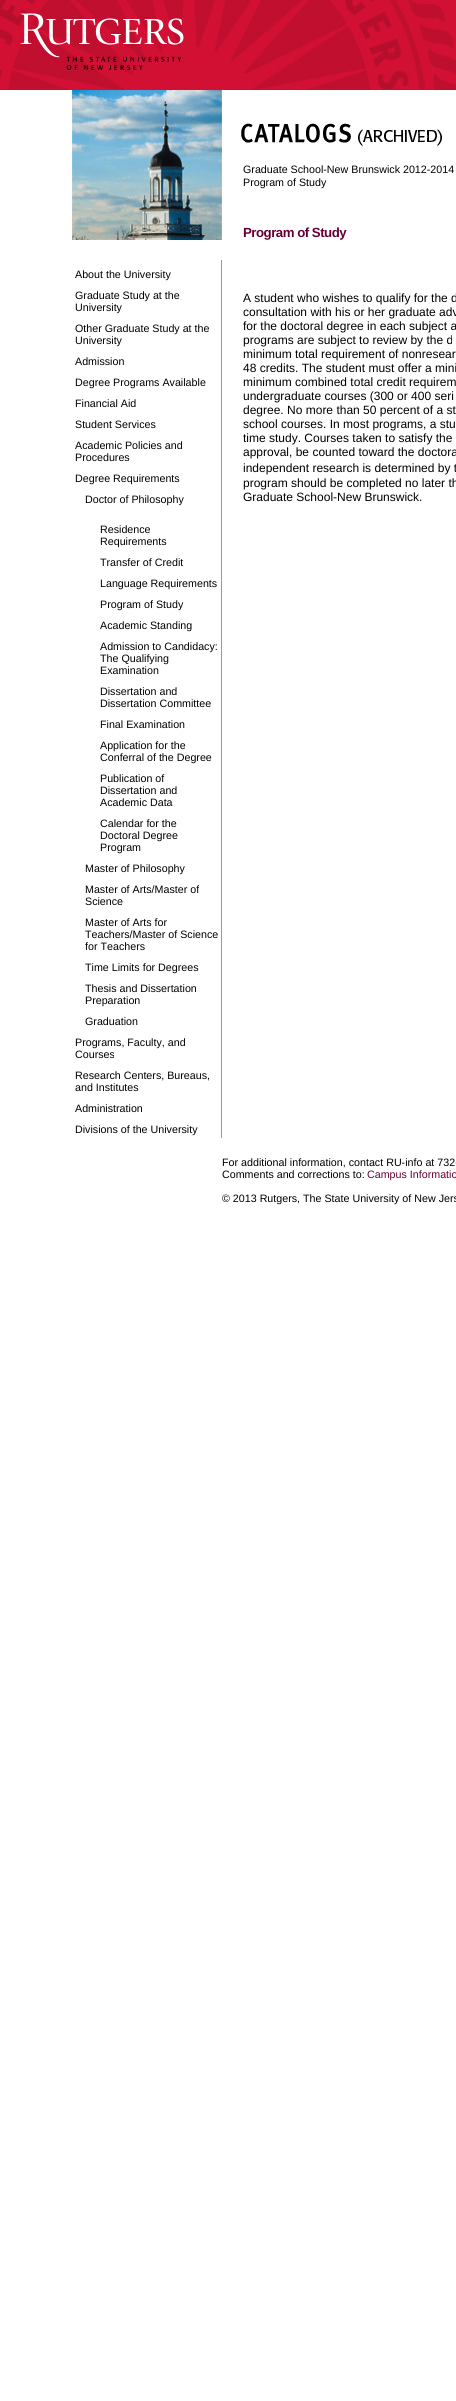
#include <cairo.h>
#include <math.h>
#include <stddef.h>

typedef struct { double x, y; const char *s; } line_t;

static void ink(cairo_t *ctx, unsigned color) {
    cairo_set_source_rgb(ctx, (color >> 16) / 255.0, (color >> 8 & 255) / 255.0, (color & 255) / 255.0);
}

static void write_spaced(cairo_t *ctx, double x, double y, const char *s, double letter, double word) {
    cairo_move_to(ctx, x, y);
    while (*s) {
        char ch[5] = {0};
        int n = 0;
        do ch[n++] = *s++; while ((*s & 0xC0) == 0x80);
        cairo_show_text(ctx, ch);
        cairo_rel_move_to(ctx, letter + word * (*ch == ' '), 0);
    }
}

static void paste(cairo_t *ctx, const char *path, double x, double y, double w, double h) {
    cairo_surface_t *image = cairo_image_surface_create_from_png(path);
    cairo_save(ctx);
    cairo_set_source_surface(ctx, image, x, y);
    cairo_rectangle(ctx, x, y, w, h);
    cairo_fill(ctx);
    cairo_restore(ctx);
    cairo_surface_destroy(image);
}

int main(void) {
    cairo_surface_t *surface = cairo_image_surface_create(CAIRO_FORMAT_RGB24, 456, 2401);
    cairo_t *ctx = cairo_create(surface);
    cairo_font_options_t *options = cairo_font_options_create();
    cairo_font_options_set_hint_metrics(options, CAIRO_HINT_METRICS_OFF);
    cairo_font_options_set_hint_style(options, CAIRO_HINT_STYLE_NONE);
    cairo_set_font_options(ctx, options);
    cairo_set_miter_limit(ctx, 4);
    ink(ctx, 0xFFFFFF);
    cairo_paint(ctx);
    paste(ctx, "media/1.png", 0, 0, 456, 90);
    paste(ctx, "media/2.png", 72, 90, 150, 150);
    cairo_select_font_face(ctx, "Liberation Sans", CAIRO_FONT_SLANT_NORMAL, CAIRO_FONT_WEIGHT_NORMAL);
    cairo_set_font_size(ctx, 10.7);
    ink(ctx, 0x000000);
    {
        static const line_t items[] = {
            {75, 278, "About the University"},
            {75, 299, "Graduate Study at the"},
            {75, 311, "University"},
            {75, 332, "Other Graduate Study at the"},
            {75, 344, "University"},
            {75, 365, "Admission"},
            {75, 386, "Degree Programs Available"},
            {75, 407, "Financial Aid"},
            {75, 428, "Student Services"},
            {75, 449, "Academic Policies and"},
            {75, 461, "Procedures"},
            {75, 482, "Degree Requirements"},
            {85, 503, "Doctor of Philosophy"},
            {100, 533, "Residence"},
            {100, 545, "Requirements"},
            {100, 566, "Transfer of Credit"},
            {100, 587, "Language Requirements"},
            {100, 608, "Program of Study"},
            {100, 629, "Academic Standing"},
            {100, 650, "Admission to Candidacy:"},
            {100, 662, "The Qualifying"},
            {100, 674, "Examination"},
            {100, 695, "Dissertation and"},
            {100, 707, "Dissertation Committee"},
            {100, 728, "Final Examination"},
            {100, 749, "Application for the"},
            {100, 761, "Conferral of the Degree"},
            {100, 782, "Publication of"},
            {100, 794, "Dissertation and"},
            {100, 806, "Academic Data"},
            {100, 827, "Calendar for the"},
            {100, 839, "Doctoral Degree"},
            {100, 851, "Program"},
            {85, 872, "Master of Philosophy"},
            {85, 893, "Master of Arts/Master of"},
            {85, 905, "Science"},
            {85, 926, "Master of Arts for"},
            {85, 938, "Teachers/Master of Science"},
            {85, 950, "for Teachers"},
            {85, 971, "Time Limits for Degrees"},
            {85, 992, "Thesis and Dissertation"},
            {85, 1004, "Preparation"},
            {85, 1025, "Graduation"},
            {75, 1046, "Programs, Faculty, and"},
            {75, 1058, "Courses"},
            {75, 1079, "Research Centers, Bureaus,"},
            {75, 1091, "and Institutes"},
            {75, 1112, "Administration"},
            {75, 1133, "Divisions of the University"},
        };
        for (size_t i = 0; i < sizeof items / sizeof *items; i++) {
            cairo_move_to(ctx, items[i].x, items[i].y);
            cairo_show_text(ctx, items[i].s);
        }
    }
    ink(ctx, 0x999999);
    cairo_rectangle(ctx, 221, 260, 1, 878);
    cairo_fill(ctx);
    paste(ctx, "media/3.png", 241, 123, 201, 23);
    ink(ctx, 0x000000);
    cairo_move_to(ctx, 243, 173);
    cairo_show_text(ctx, "Graduate School-New Brunswick 2012-2014");
    cairo_move_to(ctx, 243, 186);
    cairo_show_text(ctx, "Program of Study");
    cairo_select_font_face(ctx, "Liberation Sans", CAIRO_FONT_SLANT_NORMAL, CAIRO_FONT_WEIGHT_BOLD);
    cairo_set_font_size(ctx, 13.25);
    ink(ctx, 0x660033);
    write_spaced(ctx, 243, 237, "Program of Study", -0.5, 0);
    cairo_select_font_face(ctx, "Liberation Sans", CAIRO_FONT_SLANT_NORMAL, CAIRO_FONT_WEIGHT_NORMAL);
    cairo_set_font_size(ctx, 12);
    ink(ctx, 0x000000);
    {
        static const line_t items[] = {
            {243, 302, "A student who wishes to qualify for the d"},
            {243, 316, "consultation with his or her graduate adv"},
            {243, 330, "for the doctoral degree in each subject a"},
            {243, 344, "programs are subject to review by the d"},
            {243, 358, "minimum total requirement of nonresear"},
            {243, 372, "48 credits. The student must offer a mini"},
            {243, 386, "minimum combined total credit requirem"},
            {243, 400, "undergraduate courses (300 or 400 seri"},
            {243, 414, "degree. No more than 50 percent of a st"},
            {243, 428, "school courses. In most programs, a stu"},
            {243, 442, "time study. Courses taken to satisfy the"},
            {243, 456, "approval, be counted toward the doctora"},
            {243, 472, "independent research is determined by t"},
            {243, 487, "program should be completed no later th"},
            {243, 501, "Graduate School-New Brunswick."},
        };
        for (size_t i = 0; i < sizeof items / sizeof *items; i++) {
            cairo_move_to(ctx, items[i].x, items[i].y);
            cairo_show_text(ctx, items[i].s);
        }
    }
    cairo_set_font_size(ctx, 10.7);
    cairo_move_to(ctx, 222, 1166);
    cairo_show_text(ctx, "For additional information, contact RU-info at 732-");
    cairo_move_to(ctx, 222, 1178);
    cairo_show_text(ctx, "Comments and corrections to:");
    ink(ctx, 0x660033);
    cairo_move_to(ctx, 367, 1178);
    cairo_show_text(ctx, "Campus Informatio");
    ink(ctx, 0x000000);
    cairo_move_to(ctx, 222, 1202);
    cairo_show_text(ctx, "© 2013 Rutgers, The State University of New Jers");
    cairo_surface_write_to_png(surface, "image.png");
    cairo_font_options_destroy(options);
    cairo_destroy(ctx);
    cairo_surface_destroy(surface);
    return 0;
}
